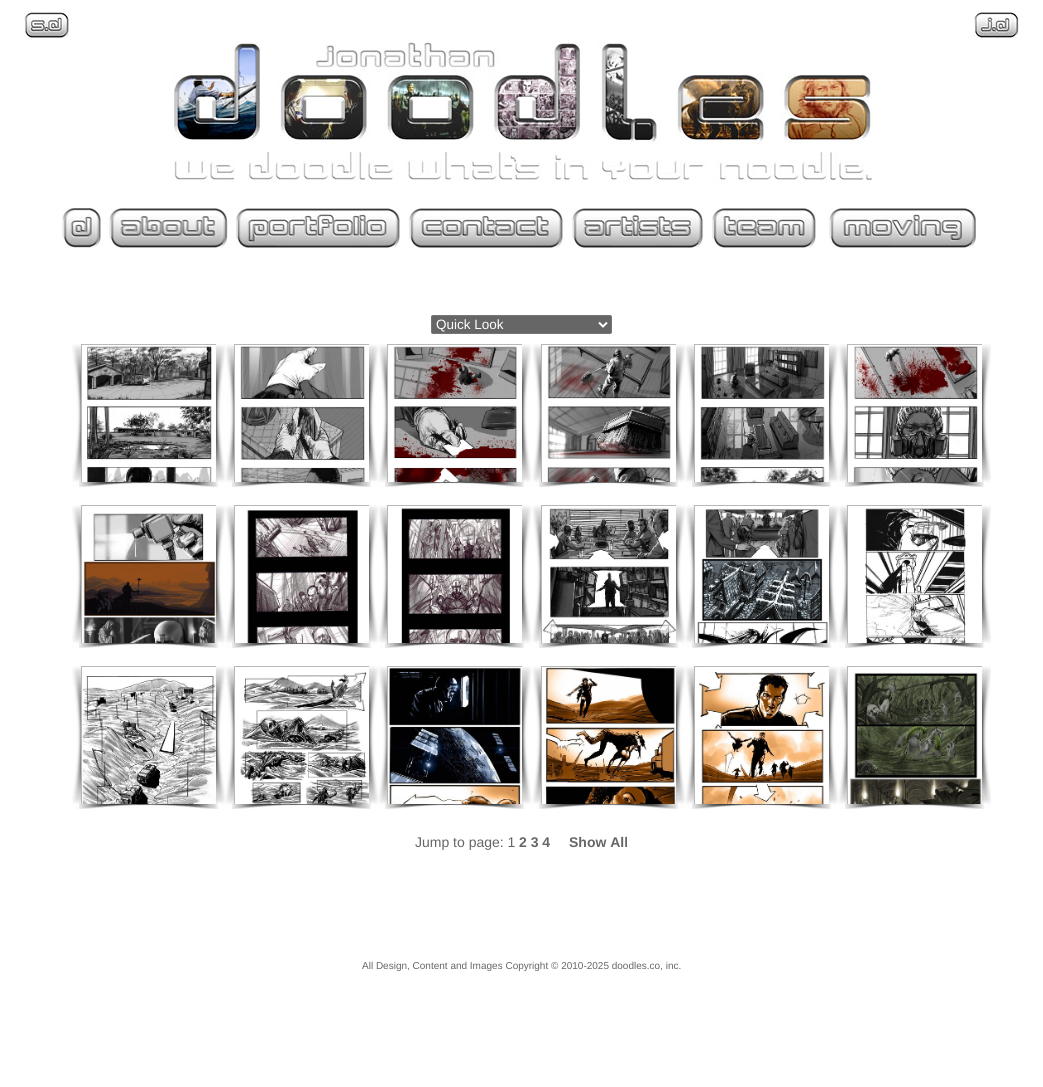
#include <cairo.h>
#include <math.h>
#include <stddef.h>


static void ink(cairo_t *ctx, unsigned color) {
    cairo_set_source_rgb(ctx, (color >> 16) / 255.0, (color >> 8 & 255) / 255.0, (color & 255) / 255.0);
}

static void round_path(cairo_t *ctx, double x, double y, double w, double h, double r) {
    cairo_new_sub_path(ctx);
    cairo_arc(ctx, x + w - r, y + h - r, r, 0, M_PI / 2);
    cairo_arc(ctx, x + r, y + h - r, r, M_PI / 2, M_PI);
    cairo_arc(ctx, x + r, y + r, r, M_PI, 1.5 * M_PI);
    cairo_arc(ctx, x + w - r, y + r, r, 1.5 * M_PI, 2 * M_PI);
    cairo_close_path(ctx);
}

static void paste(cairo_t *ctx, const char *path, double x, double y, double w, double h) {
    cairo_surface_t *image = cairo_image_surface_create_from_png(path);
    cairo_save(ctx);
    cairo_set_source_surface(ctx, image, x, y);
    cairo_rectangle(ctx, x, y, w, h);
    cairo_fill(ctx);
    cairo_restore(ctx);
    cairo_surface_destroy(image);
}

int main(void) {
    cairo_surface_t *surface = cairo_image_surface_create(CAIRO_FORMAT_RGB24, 1043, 1087);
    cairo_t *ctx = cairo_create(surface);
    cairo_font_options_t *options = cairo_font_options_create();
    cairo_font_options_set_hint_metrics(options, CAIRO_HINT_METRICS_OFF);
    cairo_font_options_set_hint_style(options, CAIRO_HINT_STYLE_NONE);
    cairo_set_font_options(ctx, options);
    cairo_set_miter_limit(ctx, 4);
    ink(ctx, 0xFFFFFF);
    cairo_paint(ctx);
    paste(ctx, "media/1.png", 23, 11, 46, 27);
    paste(ctx, "media/2.png", 974, 12, 46, 26);
    paste(ctx, "media/3.png", 172, 42, 700, 102);
    paste(ctx, "media/4.png", 173, 152, 700, 29);
    paste(ctx, "media/5.png", 62, 207, 39, 42);
    paste(ctx, "media/6.png", 109, 208, 119, 40);
    paste(ctx, "media/7.png", 236, 207, 165, 41);
    paste(ctx, "media/8.png", 408, 207, 155, 41);
    paste(ctx, "media/9.png", 572, 207, 133, 41);
    paste(ctx, "media/10.png", 712, 207, 104, 41);
    paste(ctx, "media/11.png", 829, 206, 147, 42);
    ink(ctx, 0x666666);
    round_path(ctx, 431.5, 315.5, 180, 18, 1.5);
    cairo_fill_preserve(ctx);
    ink(ctx, 0x767676);
    cairo_set_line_width(ctx, 1);
    cairo_stroke(ctx);
    cairo_new_path(ctx);
    cairo_move_to(ctx, 599, 322.5);
    cairo_line_to(ctx, 603, 326.5);
    cairo_line_to(ctx, 607, 322.5);
    ink(ctx, 0xFFFFFF);
    cairo_set_line_width(ctx, 2);
    cairo_stroke(ctx);
    cairo_select_font_face(ctx, "Liberation Sans", CAIRO_FONT_SLANT_NORMAL, CAIRO_FONT_WEIGHT_NORMAL);
    cairo_set_font_size(ctx, 13.5);
    cairo_move_to(ctx, 436, 329);
    cairo_show_text(ctx, "Quick Look");
    paste(ctx, "media/12.png", 72, 344, 153, 143);
    paste(ctx, "media/12.png", 72, 505, 153, 143);
    cairo_save(ctx);
    cairo_rectangle(ctx, 81, 344, 135, 138);
    cairo_clip(ctx);
    cairo_rectangle(ctx, 81.5, 344.5, 136, 178);
    ink(ctx, 0xB8B8B8);
    cairo_set_line_width(ctx, 1);
    cairo_stroke(ctx);
    cairo_restore(ctx);
    paste(ctx, "media/13.png", 82, 346, 130, 136);
    paste(ctx, "media/12.png", 225, 344, 153, 143);
    paste(ctx, "media/12.png", 225, 505, 153, 143);
    cairo_save(ctx);
    cairo_rectangle(ctx, 234, 344, 135, 138);
    cairo_clip(ctx);
    cairo_rectangle(ctx, 234.5, 344.5, 136, 178);
    ink(ctx, 0xB8B8B8);
    cairo_set_line_width(ctx, 1);
    cairo_stroke(ctx);
    cairo_restore(ctx);
    paste(ctx, "media/14.png", 235, 346, 130, 136);
    paste(ctx, "media/12.png", 378, 344, 153, 143);
    paste(ctx, "media/12.png", 378, 505, 153, 143);
    cairo_save(ctx);
    cairo_rectangle(ctx, 387, 344, 135, 138);
    cairo_clip(ctx);
    cairo_rectangle(ctx, 387.5, 344.5, 136, 178);
    ink(ctx, 0xB8B8B8);
    cairo_set_line_width(ctx, 1);
    cairo_stroke(ctx);
    cairo_restore(ctx);
    paste(ctx, "media/15.png", 388, 346, 129, 136);
    paste(ctx, "media/12.png", 532, 344, 153, 143);
    paste(ctx, "media/12.png", 532, 505, 153, 143);
    cairo_save(ctx);
    cairo_rectangle(ctx, 541, 344, 135, 138);
    cairo_clip(ctx);
    cairo_rectangle(ctx, 541.5, 344.5, 136, 178);
    ink(ctx, 0xB8B8B8);
    cairo_set_line_width(ctx, 1);
    cairo_stroke(ctx);
    cairo_restore(ctx);
    paste(ctx, "media/16.png", 542, 345, 129, 137);
    paste(ctx, "media/12.png", 685, 344, 153, 143);
    paste(ctx, "media/12.png", 685, 505, 153, 143);
    cairo_save(ctx);
    cairo_rectangle(ctx, 694, 344, 135, 138);
    cairo_clip(ctx);
    cairo_rectangle(ctx, 694.5, 344.5, 136, 178);
    ink(ctx, 0xB8B8B8);
    cairo_set_line_width(ctx, 1);
    cairo_stroke(ctx);
    cairo_restore(ctx);
    paste(ctx, "media/17.png", 695, 346, 130, 136);
    paste(ctx, "media/12.png", 838, 344, 153, 143);
    paste(ctx, "media/12.png", 838, 505, 153, 143);
    cairo_save(ctx);
    cairo_rectangle(ctx, 847, 344, 135, 138);
    cairo_clip(ctx);
    cairo_rectangle(ctx, 847.5, 344.5, 136, 178);
    ink(ctx, 0xB8B8B8);
    cairo_set_line_width(ctx, 1);
    cairo_stroke(ctx);
    cairo_restore(ctx);
    paste(ctx, "media/18.png", 848, 346, 130, 136);
    paste(ctx, "media/12.png", 72, 666, 153, 143);
    cairo_save(ctx);
    cairo_rectangle(ctx, 81, 505, 135, 138);
    cairo_clip(ctx);
    cairo_rectangle(ctx, 81.5, 505.5, 136, 178);
    ink(ctx, 0xB8B8B8);
    cairo_set_line_width(ctx, 1);
    cairo_stroke(ctx);
    cairo_restore(ctx);
    paste(ctx, "media/19.png", 82, 513, 134, 130);
    paste(ctx, "media/12.png", 225, 666, 153, 143);
    cairo_save(ctx);
    cairo_rectangle(ctx, 234, 505, 135, 138);
    cairo_clip(ctx);
    cairo_rectangle(ctx, 234.5, 505.5, 136, 178);
    ink(ctx, 0xB8B8B8);
    cairo_set_line_width(ctx, 1);
    cairo_stroke(ctx);
    cairo_restore(ctx);
    paste(ctx, "media/20.png", 235, 510, 123, 133);
    paste(ctx, "media/12.png", 378, 666, 153, 143);
    cairo_save(ctx);
    cairo_rectangle(ctx, 387, 505, 135, 138);
    cairo_clip(ctx);
    cairo_rectangle(ctx, 387.5, 505.5, 136, 178);
    ink(ctx, 0xB8B8B8);
    cairo_set_line_width(ctx, 1);
    cairo_stroke(ctx);
    cairo_restore(ctx);
    paste(ctx, "media/21.png", 388, 508, 122, 135);
    paste(ctx, "media/12.png", 532, 666, 153, 143);
    cairo_save(ctx);
    cairo_rectangle(ctx, 541, 505, 135, 138);
    cairo_clip(ctx);
    cairo_rectangle(ctx, 541.5, 505.5, 136, 178);
    ink(ctx, 0xB8B8B8);
    cairo_set_line_width(ctx, 1);
    cairo_stroke(ctx);
    cairo_restore(ctx);
    paste(ctx, "media/22.png", 542, 508, 134, 135);
    paste(ctx, "media/12.png", 685, 666, 153, 143);
    cairo_save(ctx);
    cairo_rectangle(ctx, 694, 505, 135, 138);
    cairo_clip(ctx);
    cairo_rectangle(ctx, 694.5, 505.5, 136, 178);
    ink(ctx, 0xB8B8B8);
    cairo_set_line_width(ctx, 1);
    cairo_stroke(ctx);
    cairo_restore(ctx);
    paste(ctx, "media/23.png", 695, 509, 133, 134);
    paste(ctx, "media/12.png", 838, 666, 153, 143);
    cairo_save(ctx);
    cairo_rectangle(ctx, 847, 505, 135, 138);
    cairo_clip(ctx);
    cairo_rectangle(ctx, 847.5, 505.5, 136, 178);
    ink(ctx, 0xB8B8B8);
    cairo_set_line_width(ctx, 1);
    cairo_stroke(ctx);
    cairo_restore(ctx);
    paste(ctx, "media/24.png", 848, 508, 118, 135);
    cairo_save(ctx);
    cairo_rectangle(ctx, 81, 666, 135, 138);
    cairo_clip(ctx);
    cairo_rectangle(ctx, 81.5, 666.5, 136, 178);
    ink(ctx, 0xB8B8B8);
    cairo_set_line_width(ctx, 1);
    cairo_stroke(ctx);
    cairo_restore(ctx);
    paste(ctx, "media/25.png", 82, 676, 134, 128);
    cairo_save(ctx);
    cairo_rectangle(ctx, 234, 666, 135, 138);
    cairo_clip(ctx);
    cairo_rectangle(ctx, 234.5, 666.5, 136, 178);
    ink(ctx, 0xB8B8B8);
    cairo_set_line_width(ctx, 1);
    cairo_stroke(ctx);
    cairo_restore(ctx);
    paste(ctx, "media/26.png", 235, 672, 134, 132);
    cairo_set_font_size(ctx, 14);
    ink(ctx, 0x666666);
    cairo_move_to(ctx, 415, 847);
    cairo_show_text(ctx, "Jump to page: 1");
    cairo_select_font_face(ctx, "Liberation Sans", CAIRO_FONT_SLANT_NORMAL, CAIRO_FONT_WEIGHT_BOLD);
    cairo_move_to(ctx, 519, 847);
    cairo_show_text(ctx, "2 3 4");
    cairo_save(ctx);
    cairo_rectangle(ctx, 387, 666, 135, 138);
    cairo_clip(ctx);
    cairo_rectangle(ctx, 387.5, 666.5, 136, 178);
    ink(ctx, 0xB8B8B8);
    cairo_set_line_width(ctx, 1);
    cairo_stroke(ctx);
    cairo_restore(ctx);
    paste(ctx, "media/27.png", 388, 667, 133, 137);
    cairo_move_to(ctx, 569, 847);
    cairo_show_text(ctx, "Show All");
    cairo_save(ctx);
    cairo_rectangle(ctx, 541, 666, 135, 138);
    cairo_clip(ctx);
    cairo_rectangle(ctx, 541.5, 666.5, 136, 178);
    ink(ctx, 0xB8B8B8);
    cairo_set_line_width(ctx, 1);
    cairo_stroke(ctx);
    cairo_restore(ctx);
    paste(ctx, "media/28.png", 542, 667, 134, 137);
    cairo_save(ctx);
    cairo_rectangle(ctx, 694, 666, 135, 138);
    cairo_clip(ctx);
    cairo_rectangle(ctx, 694.5, 666.5, 136, 178);
    ink(ctx, 0xB8B8B8);
    cairo_set_line_width(ctx, 1);
    cairo_stroke(ctx);
    cairo_restore(ctx);
    paste(ctx, "media/29.png", 695, 672, 130, 132);
    cairo_save(ctx);
    cairo_rectangle(ctx, 847, 666, 135, 138);
    cairo_clip(ctx);
    cairo_rectangle(ctx, 847.5, 666.5, 136, 178);
    ink(ctx, 0xB8B8B8);
    cairo_set_line_width(ctx, 1);
    cairo_stroke(ctx);
    cairo_restore(ctx);
    paste(ctx, "media/30.png", 848, 672, 134, 132);
    cairo_select_font_face(ctx, "Liberation Sans", CAIRO_FONT_SLANT_NORMAL, CAIRO_FONT_WEIGHT_NORMAL);
    cairo_set_font_size(ctx, 10);
    cairo_move_to(ctx, 362, 969);
    cairo_show_text(ctx, "All Design, Content and Images Copyright © 2010-2025 doodles.co, inc.");
    cairo_surface_write_to_png(surface, "image.png");
    cairo_font_options_destroy(options);
    cairo_destroy(ctx);
    cairo_surface_destroy(surface);
    return 0;
}
